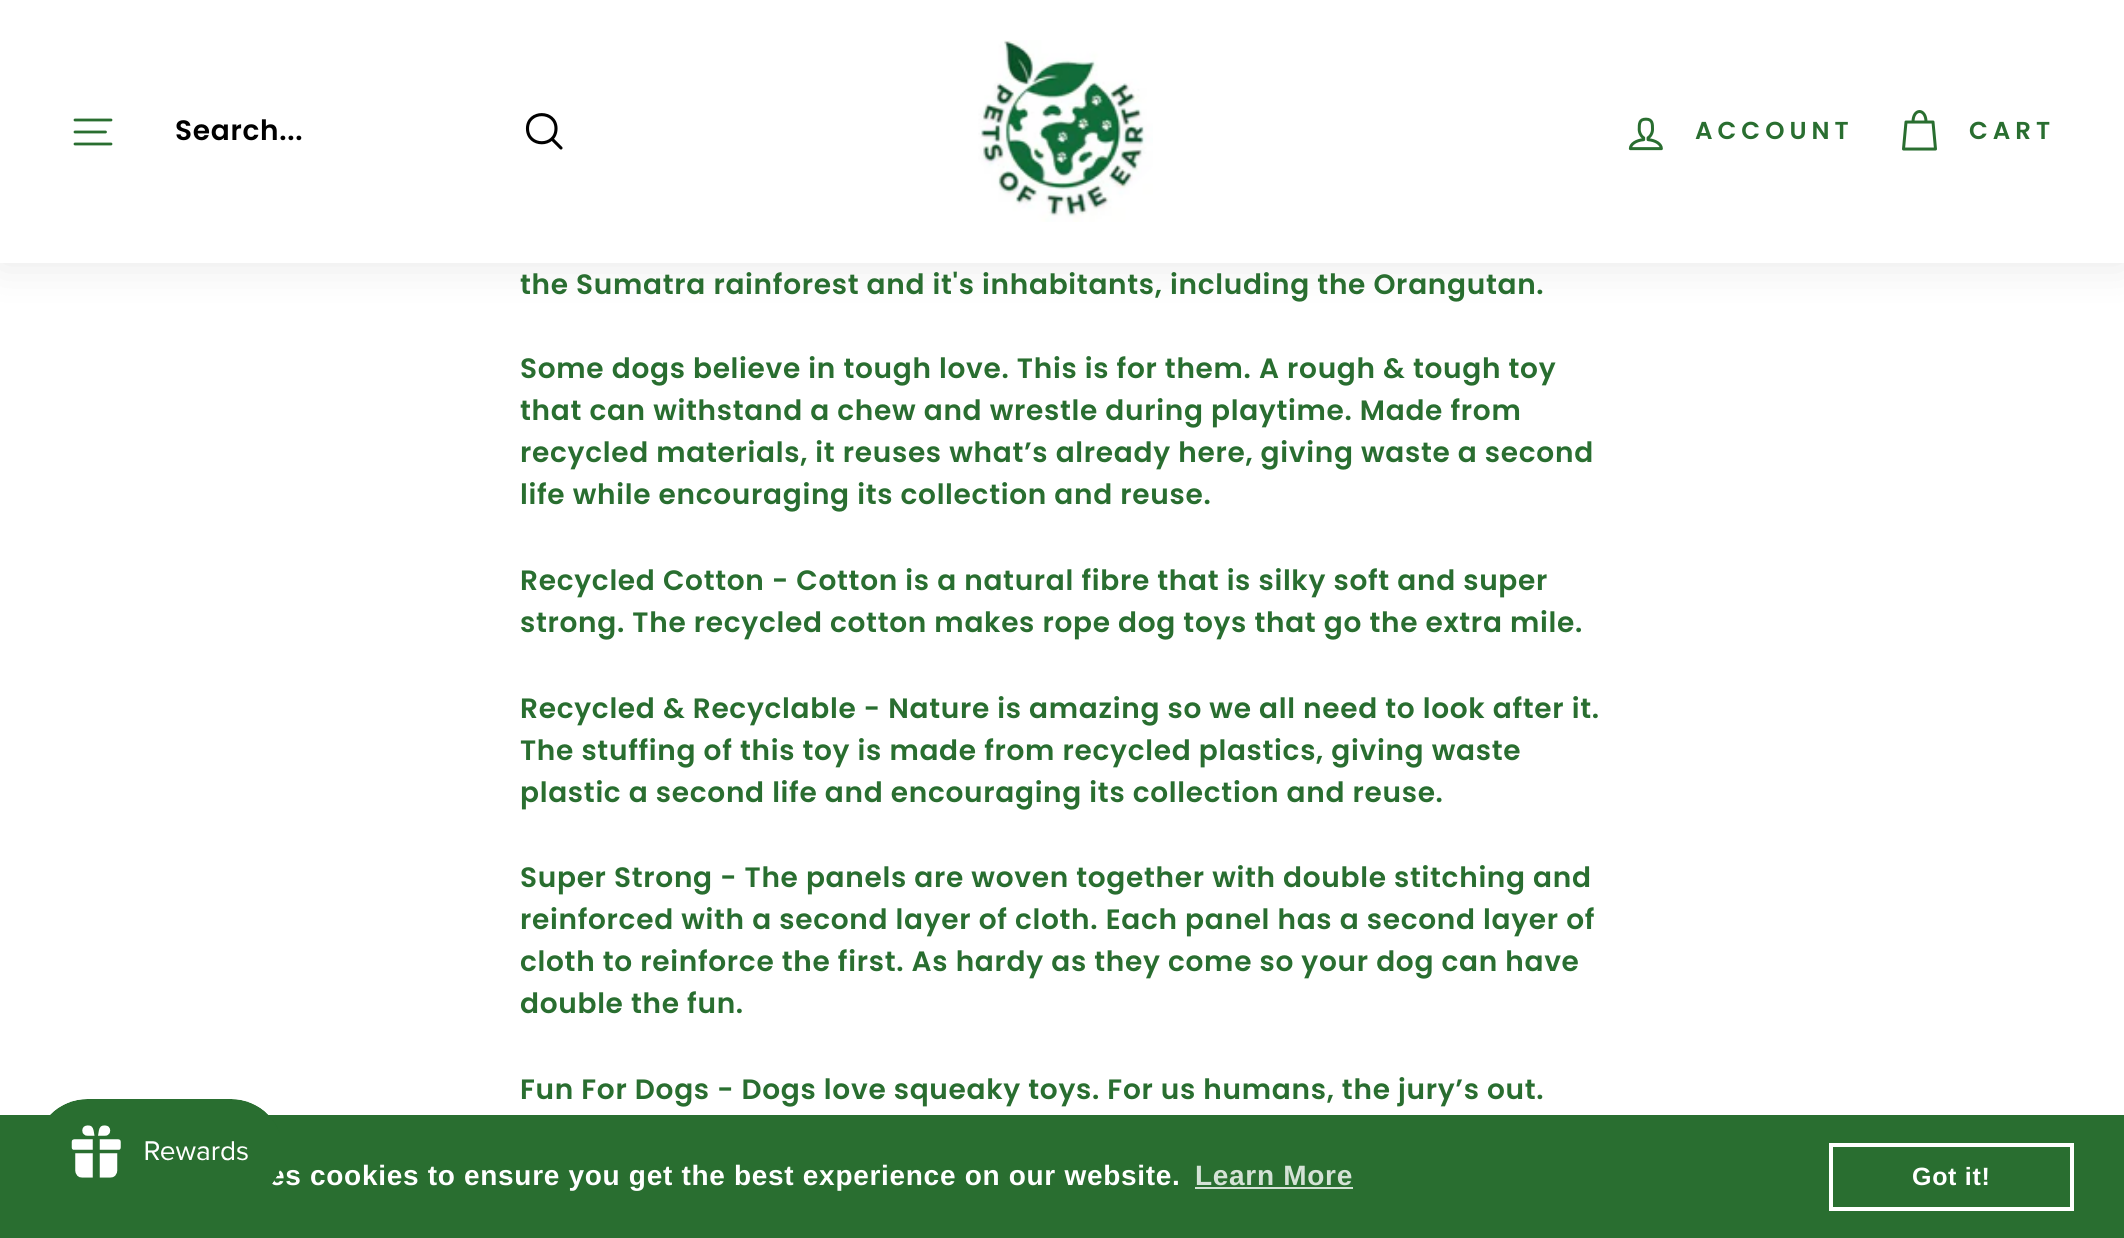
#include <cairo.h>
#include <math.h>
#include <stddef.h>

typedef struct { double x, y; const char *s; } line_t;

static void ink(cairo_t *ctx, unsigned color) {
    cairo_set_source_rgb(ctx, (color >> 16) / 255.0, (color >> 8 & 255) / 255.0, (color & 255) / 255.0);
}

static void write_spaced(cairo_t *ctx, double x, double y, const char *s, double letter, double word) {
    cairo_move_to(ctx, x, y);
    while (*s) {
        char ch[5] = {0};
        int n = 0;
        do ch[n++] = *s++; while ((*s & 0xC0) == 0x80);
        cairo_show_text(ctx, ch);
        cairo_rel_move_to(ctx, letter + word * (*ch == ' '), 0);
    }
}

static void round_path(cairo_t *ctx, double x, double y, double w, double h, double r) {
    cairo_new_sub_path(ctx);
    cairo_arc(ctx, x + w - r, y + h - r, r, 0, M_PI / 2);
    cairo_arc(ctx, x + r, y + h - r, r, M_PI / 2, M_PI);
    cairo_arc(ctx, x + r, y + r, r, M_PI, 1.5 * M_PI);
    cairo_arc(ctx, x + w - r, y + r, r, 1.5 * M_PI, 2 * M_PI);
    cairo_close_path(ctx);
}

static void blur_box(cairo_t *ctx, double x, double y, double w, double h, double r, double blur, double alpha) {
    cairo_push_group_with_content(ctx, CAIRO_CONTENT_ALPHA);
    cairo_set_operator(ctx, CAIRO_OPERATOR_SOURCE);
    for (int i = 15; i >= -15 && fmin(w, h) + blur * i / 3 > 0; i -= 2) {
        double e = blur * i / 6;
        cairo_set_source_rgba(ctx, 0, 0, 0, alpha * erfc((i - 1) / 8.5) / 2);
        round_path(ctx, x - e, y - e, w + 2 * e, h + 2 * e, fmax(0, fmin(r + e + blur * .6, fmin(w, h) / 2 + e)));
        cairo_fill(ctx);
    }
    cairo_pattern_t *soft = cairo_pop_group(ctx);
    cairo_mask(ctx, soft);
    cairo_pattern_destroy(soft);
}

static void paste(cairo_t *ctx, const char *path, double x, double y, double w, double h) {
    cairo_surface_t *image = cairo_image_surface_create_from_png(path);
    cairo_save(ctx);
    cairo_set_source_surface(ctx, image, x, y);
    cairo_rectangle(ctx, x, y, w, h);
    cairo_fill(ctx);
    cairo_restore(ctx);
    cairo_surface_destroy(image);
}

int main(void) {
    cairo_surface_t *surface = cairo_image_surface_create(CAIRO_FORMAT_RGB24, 2124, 1238);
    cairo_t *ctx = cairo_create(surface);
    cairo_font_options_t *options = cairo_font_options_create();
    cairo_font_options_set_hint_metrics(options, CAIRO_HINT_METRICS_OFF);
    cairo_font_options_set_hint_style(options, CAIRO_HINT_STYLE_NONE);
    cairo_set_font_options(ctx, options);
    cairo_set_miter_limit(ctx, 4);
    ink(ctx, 0xFFFFFF);
    cairo_paint(ctx);
    ink(ctx, 0x000000);
    blur_box(ctx, 0, 0, 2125, 263, 0, 22, 0.1);
    ink(ctx, 0xFFFFFF);
    cairo_rectangle(ctx, 0, 0, 2124, 263);
    cairo_fill(ctx);
    cairo_new_path(ctx);
    cairo_move_to(ctx, 75, 120);
    cairo_line_to(ctx, 111, 120);
    cairo_move_to(ctx, 75, 132);
    cairo_line_to(ctx, 105.5, 132);
    cairo_move_to(ctx, 75, 144);
    cairo_line_to(ctx, 111, 144);
    ink(ctx, 0x296E30);
    cairo_set_line_width(ctx, 2.8);
    cairo_set_line_cap(ctx, CAIRO_LINE_CAP_ROUND);
    cairo_set_line_join(ctx, CAIRO_LINE_JOIN_ROUND);
    cairo_stroke(ctx);
    cairo_select_font_face(ctx, "Poppins SemiBold", CAIRO_FONT_SLANT_NORMAL, CAIRO_FONT_WEIGHT_NORMAL);
    cairo_set_font_size(ctx, 28);
    ink(ctx, 0x000000);
    write_spaced(ctx, 175, 140, "Search...", 0.7, 0);
    cairo_new_path(ctx);
    cairo_move_to(ctx, 556, 128.5);
    cairo_curve_to(ctx, 556, 147.5, 527.5, 147.5, 527.5, 128.5);
    cairo_curve_to(ctx, 527.5, 110, 556, 110, 556, 128.5);
    cairo_close_path(ctx);
    cairo_move_to(ctx, 561, 148);
    cairo_line_to(ctx, 552, 139);
    cairo_set_line_width(ctx, 3.1);
    cairo_stroke(ctx);
    paste(ctx, "media/1.png", 978, 40, 175, 182);
    paste(ctx, "media/2.png", 1628, 117, 35, 34);
    cairo_set_font_size(ctx, 24.5);
    ink(ctx, 0x296E30);
    write_spaced(ctx, 1695, 139, "ACCOUNT", 5, 0);
    cairo_new_path(ctx);
    cairo_move_to(ctx, 1913, 122);
    cairo_curve_to(ctx, 1913, 108, 1926, 108, 1926, 122);
    cairo_move_to(ctx, 1906, 122);
    cairo_line_to(ctx, 1933, 122);
    cairo_line_to(ctx, 1935.5, 149);
    cairo_line_to(ctx, 1903.5, 149);
    cairo_close_path(ctx);
    cairo_set_line_width(ctx, 3);
    cairo_stroke(ctx);
    write_spaced(ctx, 1969, 139, "CART", 5, 0);
    cairo_set_font_size(ctx, 28);
    {
        static const line_t items[] = {
            {520, 294, "the Sumatra rainforest and it's inhabitants, including the Orangutan."},
            {520, 378, "Some dogs believe in tough love. This is for them. A rough & tough toy"},
            {520, 420, "that can withstand a chew and wrestle during playtime. Made from"},
            {520, 462, "recycled materials, it reuses what’s already here, giving waste a second"},
            {520, 504, "life while encouraging its collection and reuse."},
            {520, 590, "Recycled Cotton - Cotton is a natural fibre that is silky soft and super"},
            {520, 632, "strong. The recycled cotton makes rope dog toys that go the extra mile."},
            {520, 718, "Recycled & Recyclable - Nature is amazing so we all need to look after it."},
            {520, 760, "The stuffing of this toy is made from recycled plastics, giving waste"},
            {520, 802, "plastic a second life and encouraging its collection and reuse."},
            {520, 887, "Super Strong - The panels are woven together with double stitching and"},
            {520, 929, "reinforced with a second layer of cloth. Each panel has a second layer of"},
            {520, 971, "cloth to reinforce the first. As hardy as they come so your dog can have"},
            {520, 1013, "double the fun."},
            {520, 1099, "Fun For Dogs - Dogs love squeaky toys. For us humans, the jury’s out."},
        };
        for (size_t i = 0; i < sizeof items / sizeof *items; i++) {
            write_spaced(ctx, items[i].x, items[i].y, items[i].s, 0.7, 0);
        }
    }
    cairo_rectangle(ctx, 0, 1115, 2124, 123);
    cairo_fill(ctx);
    cairo_select_font_face(ctx, "Liberation Sans", CAIRO_FONT_SLANT_NORMAL, CAIRO_FONT_WEIGHT_BOLD);
    ink(ctx, 0xFFFFFF);
    write_spaced(ctx, 269, 1185, "es cookies to ensure you get the best experience on our website.", 0.7, 0);
    paste(ctx, "media/3.png", 50, 1099, 230, 87);
    ink(ctx, 0xD4E2D6);
    write_spaced(ctx, 1195, 1185, "Learn More", 0.7, 0);
    cairo_rectangle(ctx, 1195, 1187, 158, 2);
    cairo_fill(ctx);
    cairo_rectangle(ctx, 1831, 1145, 241, 64);
    ink(ctx, 0xFFFFFF);
    cairo_set_line_width(ctx, 4);
    cairo_set_line_cap(ctx, CAIRO_LINE_CAP_BUTT);
    cairo_set_line_join(ctx, CAIRO_LINE_JOIN_MITER);
    cairo_stroke(ctx);
    cairo_set_font_size(ctx, 25);
    write_spaced(ctx, 1912, 1185, "Got it!", 0.7, 0);
    cairo_surface_write_to_png(surface, "image.png");
    cairo_font_options_destroy(options);
    cairo_destroy(ctx);
    cairo_surface_destroy(surface);
    return 0;
}
